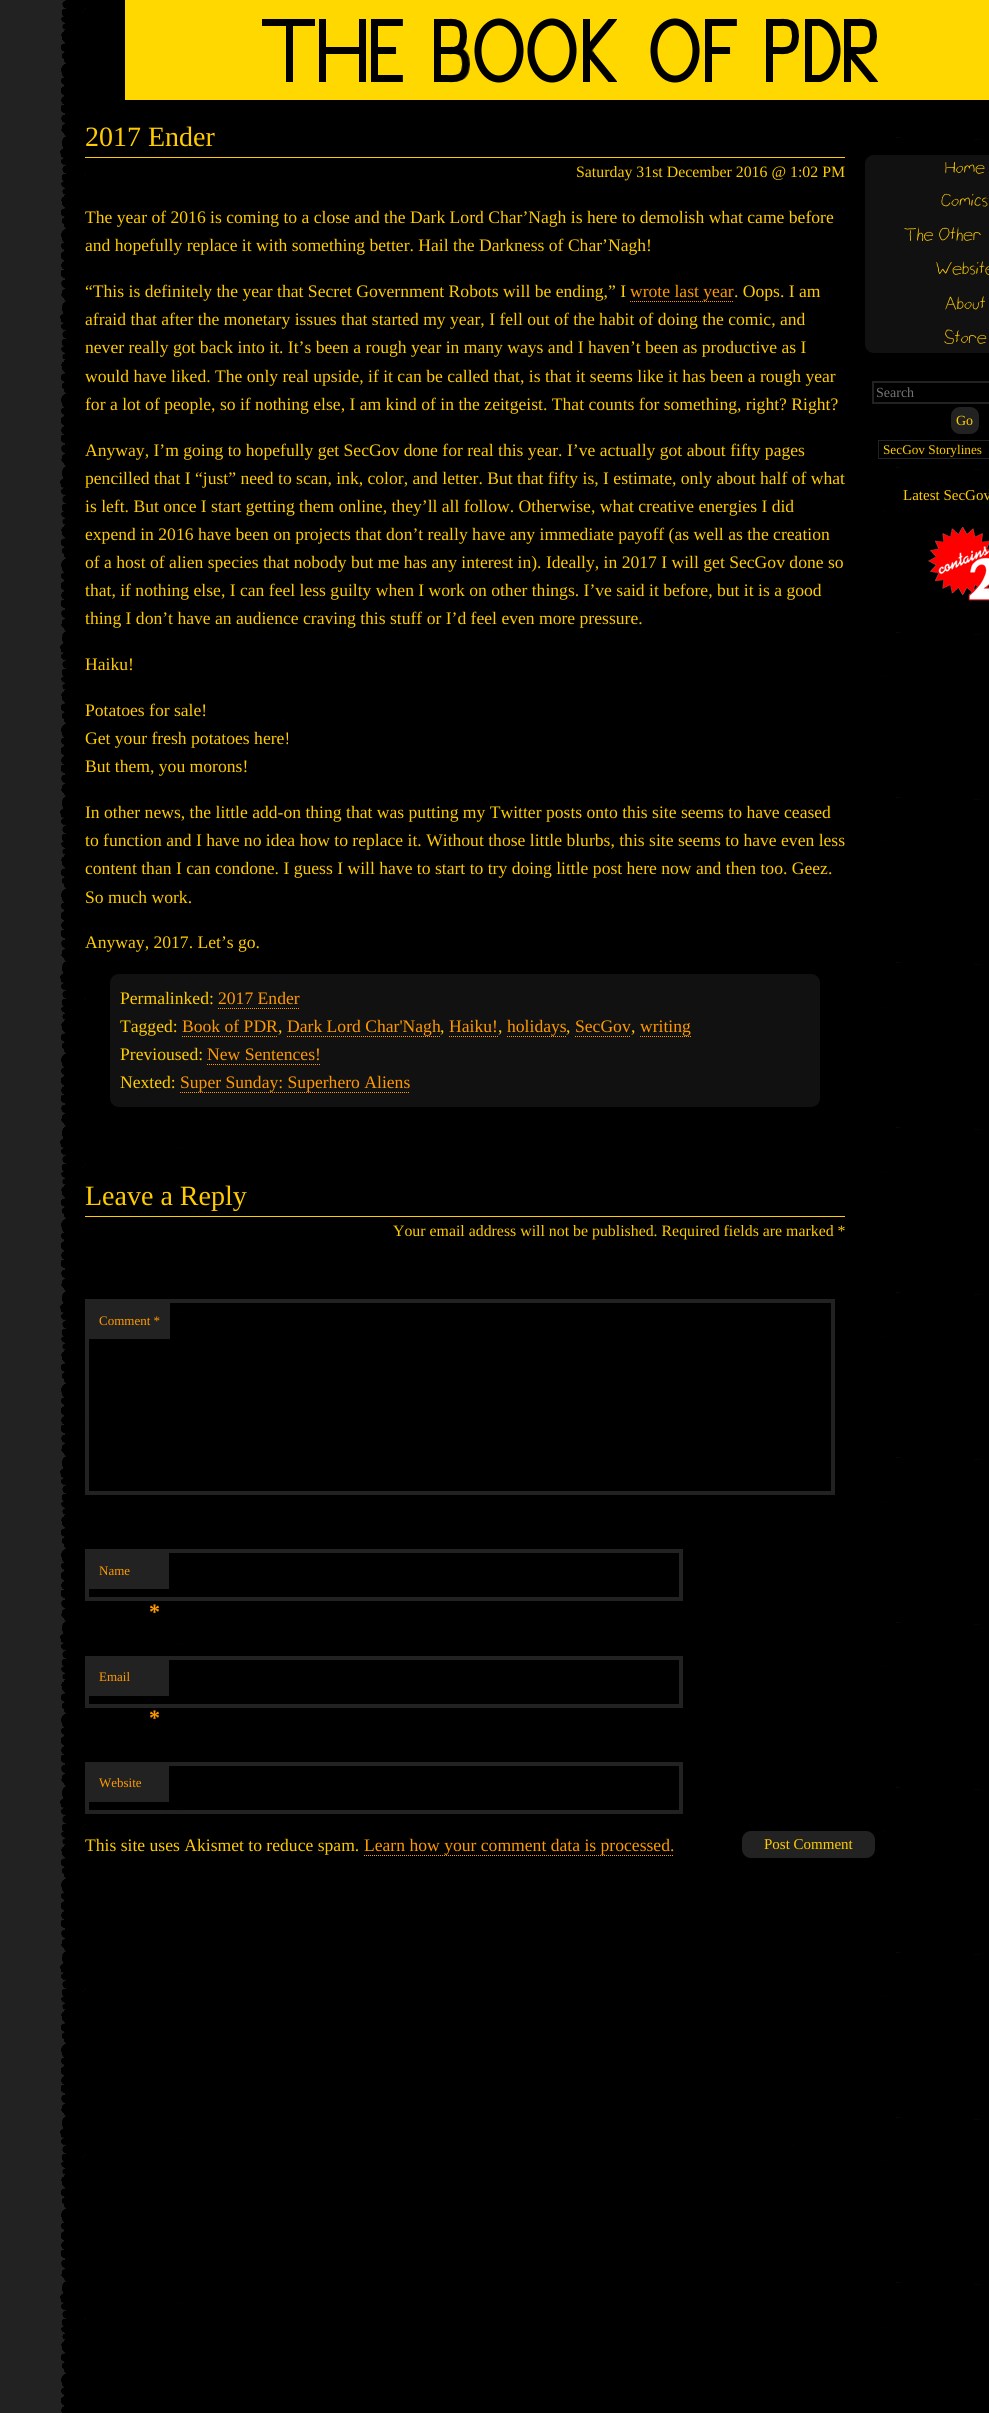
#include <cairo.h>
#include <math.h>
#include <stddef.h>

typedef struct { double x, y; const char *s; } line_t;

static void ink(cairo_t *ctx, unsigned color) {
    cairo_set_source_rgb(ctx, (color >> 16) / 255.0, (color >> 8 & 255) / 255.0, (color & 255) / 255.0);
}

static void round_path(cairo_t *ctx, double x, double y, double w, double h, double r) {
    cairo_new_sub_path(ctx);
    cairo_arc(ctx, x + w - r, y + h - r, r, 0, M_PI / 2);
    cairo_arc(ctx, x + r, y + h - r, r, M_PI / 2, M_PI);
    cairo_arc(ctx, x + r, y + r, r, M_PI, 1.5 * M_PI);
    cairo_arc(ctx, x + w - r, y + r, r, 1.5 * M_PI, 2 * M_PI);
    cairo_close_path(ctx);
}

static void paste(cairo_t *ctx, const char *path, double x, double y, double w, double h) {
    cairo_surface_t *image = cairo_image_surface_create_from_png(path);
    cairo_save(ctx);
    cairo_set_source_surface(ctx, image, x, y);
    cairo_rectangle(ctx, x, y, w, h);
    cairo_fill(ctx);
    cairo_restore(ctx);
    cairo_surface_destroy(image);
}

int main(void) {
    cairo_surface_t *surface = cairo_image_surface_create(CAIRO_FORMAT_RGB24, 989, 2413);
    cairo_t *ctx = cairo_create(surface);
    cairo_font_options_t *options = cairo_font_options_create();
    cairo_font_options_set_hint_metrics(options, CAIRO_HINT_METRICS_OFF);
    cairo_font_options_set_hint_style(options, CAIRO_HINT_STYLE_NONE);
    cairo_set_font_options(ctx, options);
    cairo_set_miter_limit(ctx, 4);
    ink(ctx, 0x222222);
    cairo_paint(ctx);
    paste(ctx, "media/1.png", 60, 0, 929, 2413);
    paste(ctx, "media/2.png", 125, 0, 864, 100);
    ink(ctx, 0xFFCC00);
    cairo_rectangle(ctx, 85, 157, 760, 1);
    cairo_fill(ctx);
    cairo_select_font_face(ctx, "Liberation Serif", CAIRO_FONT_SLANT_NORMAL, CAIRO_FONT_WEIGHT_NORMAL);
    cairo_set_font_size(ctx, 28);
    cairo_move_to(ctx, 85, 146);
    cairo_show_text(ctx, "2017 Ender");
    cairo_set_font_size(ctx, 15.85);
    cairo_move_to(ctx, 576, 177);
    cairo_show_text(ctx, "Saturday 31st December 2016 @ 1:02 PM");
    cairo_set_font_size(ctx, 17.6);
    {
        static const line_t items[] = {
            {85, 223, "The year of 2016 is coming to a close and the Dark Lord Char’Nagh is here to demolish what came before"},
            {85, 251, "and hopefully replace it with something better. Hail the Darkness of Char’Nagh!"},
            {85, 297, "“This is definitely the year that Secret Government Robots will be ending,” I"},
        };
        for (size_t i = 0; i < sizeof items / sizeof *items; i++) {
            cairo_move_to(ctx, items[i].x, items[i].y);
            cairo_show_text(ctx, items[i].s);
        }
    }
    ink(ctx, 0xFF9900);
    cairo_move_to(ctx, 630, 297);
    cairo_show_text(ctx, "wrote last year");
    cairo_new_path(ctx);
    cairo_move_to(ctx, 630, 301.5);
    cairo_line_to(ctx, 734, 301.5);
    cairo_set_line_width(ctx, 1);
    cairo_set_dash(ctx, (double[]){1, 1}, 2, 0);
    cairo_stroke(ctx);
    ink(ctx, 0xFFCC00);
    {
        static const line_t items[] = {
            {734, 297, ". Oops. I am"},
            {85, 325, "afraid that after the monetary issues that started my year, I fell out of the habit of doing the comic, and"},
            {85, 353, "never really got back into it. It’s been a rough year in many ways and I haven’t been as productive as I"},
            {85, 382, "would have liked. The only real upside, if it can be called that, is that it seems like it has been a rough year"},
            {85, 410, "for a lot of people, so if nothing else, I am kind of in the zeitgeist. That counts for something, right? Right?"},
            {85, 456, "Anyway, I’m going to hopefully get SecGov done for real this year. I’ve actually got about fifty pages"},
            {85, 484, "pencilled that I “just” need to scan, ink, color, and letter. But that fifty is, I estimate, only about half of what"},
            {85, 512, "is left. But once I start getting them online, they’ll all follow. Otherwise, what creative energies I did"},
            {85, 540, "expend in 2016 have been on projects that don’t really have any immediate payoff (as well as the creation"},
            {85, 568, "of a host of alien species that nobody but me has any interest in). Ideally, in 2017 I will get SecGov done so"},
            {85, 596, "that, if nothing else, I can feel less guilty when I work on other things. I’ve said it before, but it is a good"},
            {85, 624, "thing I don’t have an audience craving this stuff or I’d feel even more pressure."},
            {85, 670, "Haiku!"},
            {85, 716, "Potatoes for sale!"},
            {85, 744, "Get your fresh potatoes here!"},
            {85, 772, "But them, you morons!"},
            {85, 818, "In other news, the little add-on thing that was putting my Twitter posts onto this site seems to have ceased"},
            {85, 846, "to function and I have no idea how to replace it. Without those little blurbs, this site seems to have even less"},
            {85, 874, "content than I can condone. I guess I will have to start to try doing little post here now and then too. Geez."},
            {85, 903, "So much work."},
            {85, 948, "Anyway, 2017. Let’s go."},
        };
        for (size_t i = 0; i < sizeof items / sizeof *items; i++) {
            cairo_move_to(ctx, items[i].x, items[i].y);
            cairo_show_text(ctx, items[i].s);
        }
    }
    ink(ctx, 0x111111);
    round_path(ctx, 110, 974, 710, 133, 9);
    cairo_fill(ctx);
    ink(ctx, 0xFFCC00);
    cairo_move_to(ctx, 120, 1004);
    cairo_show_text(ctx, "Permalinked:");
    ink(ctx, 0xFF9900);
    cairo_move_to(ctx, 218, 1004);
    cairo_show_text(ctx, "2017 Ender");
    cairo_new_path(ctx);
    cairo_move_to(ctx, 218, 1008.5);
    cairo_line_to(ctx, 300, 1008.5);
    cairo_stroke(ctx);
    ink(ctx, 0xFFCC00);
    cairo_move_to(ctx, 120, 1032);
    cairo_show_text(ctx, "Tagged:");
    ink(ctx, 0xFF9900);
    cairo_move_to(ctx, 182, 1032);
    cairo_show_text(ctx, "Book of PDR");
    cairo_new_path(ctx);
    cairo_move_to(ctx, 182, 1036.5);
    cairo_line_to(ctx, 278, 1036.5);
    cairo_stroke(ctx);
    ink(ctx, 0xFFCC00);
    cairo_move_to(ctx, 278, 1032);
    cairo_show_text(ctx, ",");
    ink(ctx, 0xFF9900);
    cairo_move_to(ctx, 287, 1032);
    cairo_show_text(ctx, "Dark Lord Char'Nagh");
    cairo_new_path(ctx);
    cairo_move_to(ctx, 287, 1036.5);
    cairo_line_to(ctx, 440, 1036.5);
    cairo_stroke(ctx);
    ink(ctx, 0xFFCC00);
    cairo_move_to(ctx, 440, 1032);
    cairo_show_text(ctx, ",");
    ink(ctx, 0xFF9900);
    cairo_move_to(ctx, 449, 1032);
    cairo_show_text(ctx, "Haiku!");
    cairo_new_path(ctx);
    cairo_move_to(ctx, 449, 1036.5);
    cairo_line_to(ctx, 498, 1036.5);
    cairo_stroke(ctx);
    ink(ctx, 0xFFCC00);
    cairo_move_to(ctx, 498, 1032);
    cairo_show_text(ctx, ",");
    ink(ctx, 0xFF9900);
    cairo_move_to(ctx, 507, 1032);
    cairo_show_text(ctx, "holidays");
    cairo_new_path(ctx);
    cairo_move_to(ctx, 507, 1036.5);
    cairo_line_to(ctx, 566, 1036.5);
    cairo_stroke(ctx);
    ink(ctx, 0xFFCC00);
    cairo_move_to(ctx, 566, 1032);
    cairo_show_text(ctx, ",");
    ink(ctx, 0xFF9900);
    cairo_move_to(ctx, 575, 1032);
    cairo_show_text(ctx, "SecGov");
    cairo_new_path(ctx);
    cairo_move_to(ctx, 575, 1036.5);
    cairo_line_to(ctx, 631, 1036.5);
    cairo_stroke(ctx);
    ink(ctx, 0xFFCC00);
    cairo_move_to(ctx, 631, 1032);
    cairo_show_text(ctx, ",");
    ink(ctx, 0xFF9900);
    cairo_move_to(ctx, 640, 1032);
    cairo_show_text(ctx, "writing");
    cairo_new_path(ctx);
    cairo_move_to(ctx, 640, 1036.5);
    cairo_line_to(ctx, 691, 1036.5);
    cairo_stroke(ctx);
    ink(ctx, 0xFFCC00);
    cairo_move_to(ctx, 120, 1060);
    cairo_show_text(ctx, "Previoused:");
    ink(ctx, 0xFF9900);
    cairo_move_to(ctx, 207, 1060);
    cairo_show_text(ctx, "New Sentences!");
    cairo_new_path(ctx);
    cairo_move_to(ctx, 207, 1064.5);
    cairo_line_to(ctx, 321, 1064.5);
    cairo_stroke(ctx);
    ink(ctx, 0xFFCC00);
    cairo_move_to(ctx, 120, 1088);
    cairo_show_text(ctx, "Nexted:");
    ink(ctx, 0xFF9900);
    cairo_move_to(ctx, 180, 1088);
    cairo_show_text(ctx, "Super Sunday: Superhero Aliens");
    cairo_new_path(ctx);
    cairo_move_to(ctx, 180, 1092.5);
    cairo_line_to(ctx, 410, 1092.5);
    cairo_stroke(ctx);
    ink(ctx, 0xFFCC00);
    cairo_rectangle(ctx, 85, 1216, 760, 1);
    cairo_fill(ctx);
    cairo_set_font_size(ctx, 28);
    cairo_move_to(ctx, 85, 1205);
    cairo_show_text(ctx, "Leave a Reply");
    cairo_set_font_size(ctx, 15.85);
    cairo_move_to(ctx, 393, 1236);
    cairo_show_text(ctx, "Your email address will not be published. Required fields are marked *");
    ink(ctx, 0x000000);
    cairo_rectangle(ctx, 159, 1319, 635, 166);
    cairo_fill(ctx);
    cairo_rectangle(ctx, 87, 1301, 746, 192);
    ink(ctx, 0x222222);
    cairo_set_line_width(ctx, 4);
    cairo_set_dash(ctx, NULL, 0, 0);
    cairo_stroke(ctx);
    cairo_rectangle(ctx, 89, 1303, 81, 36);
    cairo_fill(ctx);
    cairo_set_font_size(ctx, 13);
    ink(ctx, 0xFF9900);
    cairo_move_to(ctx, 99, 1325);
    cairo_show_text(ctx, "Comment *");
    cairo_rectangle(ctx, 87, 1551, 594, 48);
    ink(ctx, 0x222222);
    cairo_stroke(ctx);
    cairo_rectangle(ctx, 89, 1553, 80, 36);
    cairo_fill(ctx);
    ink(ctx, 0xFF9900);
    cairo_move_to(ctx, 99, 1575);
    cairo_show_text(ctx, "Name");
    cairo_select_font_face(ctx, "Liberation Serif", CAIRO_FONT_SLANT_NORMAL, CAIRO_FONT_WEIGHT_BOLD);
    cairo_set_font_size(ctx, 22);
    cairo_move_to(ctx, 149, 1619);
    cairo_show_text(ctx, "*");
    cairo_rectangle(ctx, 87, 1658, 594, 48);
    ink(ctx, 0x222222);
    cairo_stroke(ctx);
    cairo_rectangle(ctx, 89, 1660, 80, 36);
    cairo_fill(ctx);
    cairo_select_font_face(ctx, "Liberation Serif", CAIRO_FONT_SLANT_NORMAL, CAIRO_FONT_WEIGHT_NORMAL);
    cairo_set_font_size(ctx, 13);
    ink(ctx, 0xFF9900);
    cairo_move_to(ctx, 99, 1681);
    cairo_show_text(ctx, "Email");
    cairo_select_font_face(ctx, "Liberation Serif", CAIRO_FONT_SLANT_NORMAL, CAIRO_FONT_WEIGHT_BOLD);
    cairo_set_font_size(ctx, 22);
    cairo_move_to(ctx, 149, 1725);
    cairo_show_text(ctx, "*");
    cairo_rectangle(ctx, 87, 1764, 594, 48);
    ink(ctx, 0x222222);
    cairo_stroke(ctx);
    cairo_rectangle(ctx, 89, 1766, 80, 36);
    cairo_fill(ctx);
    cairo_select_font_face(ctx, "Liberation Serif", CAIRO_FONT_SLANT_NORMAL, CAIRO_FONT_WEIGHT_NORMAL);
    cairo_set_font_size(ctx, 13);
    ink(ctx, 0xFF9900);
    cairo_move_to(ctx, 99, 1787);
    cairo_show_text(ctx, "Website");
    ink(ctx, 0x222222);
    round_path(ctx, 742, 1831, 133, 27, 9);
    cairo_fill(ctx);
    cairo_set_font_size(ctx, 15);
    ink(ctx, 0xFFCC00);
    cairo_move_to(ctx, 764, 1849);
    cairo_show_text(ctx, "Post Comment");
    cairo_set_font_size(ctx, 17.6);
    cairo_move_to(ctx, 85, 1851);
    cairo_show_text(ctx, "This site uses Akismet to reduce spam.");
    ink(ctx, 0xFF9900);
    cairo_move_to(ctx, 364, 1851);
    cairo_show_text(ctx, "Learn how your comment data is processed.");
    cairo_new_path(ctx);
    cairo_move_to(ctx, 364, 1855.5);
    cairo_line_to(ctx, 674, 1855.5);
    cairo_set_line_width(ctx, 1);
    cairo_set_dash(ctx, (double[]){1, 1}, 2, 0);
    cairo_stroke(ctx);
    ink(ctx, 0x111111);
    round_path(ctx, 865, 155, 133, 198, 9);
    cairo_fill(ctx);
    cairo_select_font_face(ctx, "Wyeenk", CAIRO_FONT_SLANT_NORMAL, CAIRO_FONT_WEIGHT_NORMAL);
    cairo_set_font_size(ctx, 14);
    ink(ctx, 0xFFCC00);
    {
        static const line_t items[] = {
            {945, 173, "Home"},
            {941, 206, "Comics"},
            {904, 240, "The Other"},
            {936, 274, "Website"},
            {945, 309, "About"},
            {944, 343, "Store"},
        };
        for (size_t i = 0; i < sizeof items / sizeof *items; i++) {
            cairo_move_to(ctx, items[i].x, items[i].y);
            cairo_show_text(ctx, items[i].s);
        }
    }
    cairo_rectangle(ctx, 873, 382, 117, 21);
    ink(ctx, 0x222222);
    cairo_set_line_width(ctx, 2);
    cairo_set_dash(ctx, NULL, 0, 0);
    cairo_stroke(ctx);
    cairo_select_font_face(ctx, "Liberation Serif", CAIRO_FONT_SLANT_NORMAL, CAIRO_FONT_WEIGHT_NORMAL);
    ink(ctx, 0x757575);
    cairo_move_to(ctx, 876, 397);
    cairo_show_text(ctx, "Search");
    ink(ctx, 0x222222);
    round_path(ctx, 951, 407, 28, 27, 9);
    cairo_fill(ctx);
    ink(ctx, 0xFFCC00);
    cairo_move_to(ctx, 956, 425);
    cairo_show_text(ctx, "Go");
    ink(ctx, 0x000000);
    cairo_rectangle(ctx, 944, 456, 1, 1);
    cairo_fill(ctx);
    cairo_rectangle(ctx, 878.5, 440.5, 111, 18);
    ink(ctx, 0x222222);
    cairo_set_line_width(ctx, 1);
    cairo_stroke(ctx);
    cairo_set_font_size(ctx, 13.25);
    ink(ctx, 0xFFCC00);
    cairo_move_to(ctx, 883, 454);
    cairo_show_text(ctx, "SecGov Storylines");
    cairo_set_font_size(ctx, 15);
    cairo_move_to(ctx, 903, 500);
    cairo_show_text(ctx, "Latest SecGov");
    paste(ctx, "media/3.png", 928, 527, 61, 74);
    cairo_surface_write_to_png(surface, "image.png");
    cairo_font_options_destroy(options);
    cairo_destroy(ctx);
    cairo_surface_destroy(surface);
    return 0;
}
